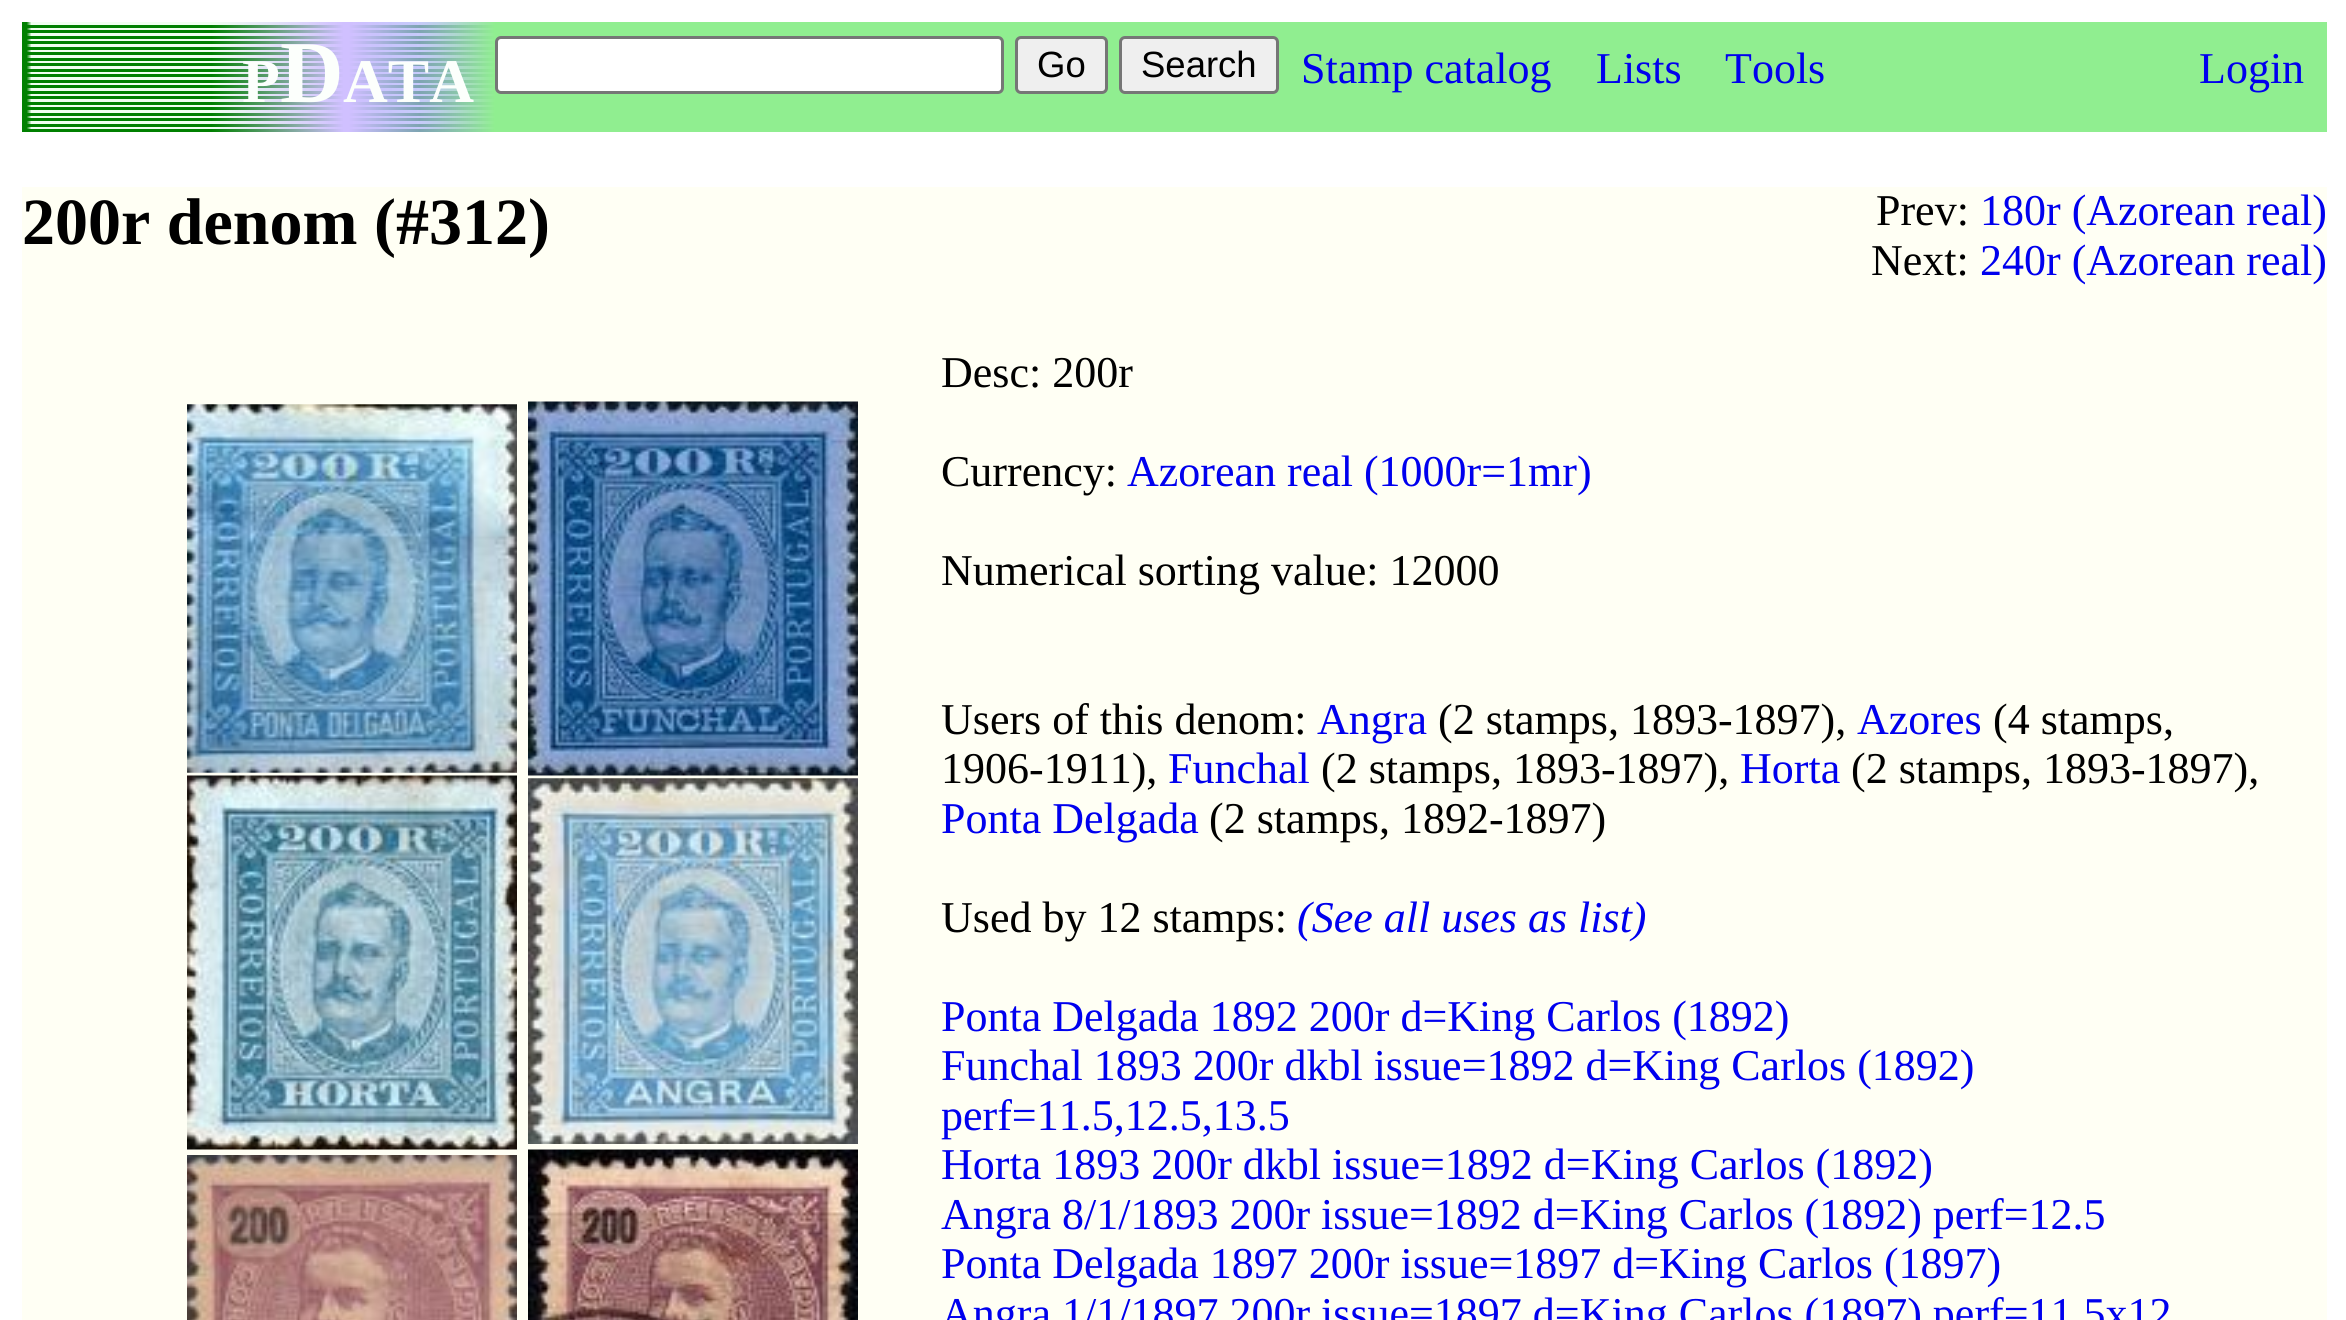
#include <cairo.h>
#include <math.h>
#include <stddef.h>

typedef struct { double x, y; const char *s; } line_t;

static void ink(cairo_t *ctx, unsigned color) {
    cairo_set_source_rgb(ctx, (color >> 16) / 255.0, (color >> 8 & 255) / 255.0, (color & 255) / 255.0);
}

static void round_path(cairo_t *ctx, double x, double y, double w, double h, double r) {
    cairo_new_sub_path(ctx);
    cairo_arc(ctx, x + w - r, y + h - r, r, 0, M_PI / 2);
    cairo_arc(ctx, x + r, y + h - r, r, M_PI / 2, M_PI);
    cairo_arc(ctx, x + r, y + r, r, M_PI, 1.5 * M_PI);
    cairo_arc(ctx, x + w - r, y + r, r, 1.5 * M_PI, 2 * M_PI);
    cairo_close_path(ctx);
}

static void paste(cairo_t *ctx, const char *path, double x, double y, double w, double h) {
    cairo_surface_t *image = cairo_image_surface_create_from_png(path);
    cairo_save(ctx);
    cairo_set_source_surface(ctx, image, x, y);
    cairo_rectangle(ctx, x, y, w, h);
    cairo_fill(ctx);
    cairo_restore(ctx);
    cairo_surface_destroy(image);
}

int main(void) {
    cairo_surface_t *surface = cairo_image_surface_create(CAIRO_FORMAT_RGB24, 2346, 1320);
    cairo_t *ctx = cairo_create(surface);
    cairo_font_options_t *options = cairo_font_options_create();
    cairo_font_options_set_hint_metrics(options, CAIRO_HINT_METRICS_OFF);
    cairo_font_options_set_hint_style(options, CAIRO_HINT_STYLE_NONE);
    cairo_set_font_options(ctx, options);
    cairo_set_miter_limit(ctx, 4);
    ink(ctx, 0xFFFFFF);
    cairo_paint(ctx);
    ink(ctx, 0x90EE90);
    cairo_rectangle(ctx, 495, 22, 1832, 110);
    cairo_fill(ctx);
    paste(ctx, "media/1.png", 22, 22, 473, 110);
    cairo_select_font_face(ctx, "Liberation Serif", CAIRO_FONT_SLANT_NORMAL, CAIRO_FONT_WEIGHT_BOLD);
    cairo_set_font_size(ctx, 62);
    ink(ctx, 0xFCFFFC);
    cairo_move_to(ctx, 242, 102);
    cairo_show_text(ctx, "P");
    cairo_set_font_size(ctx, 88);
    cairo_move_to(ctx, 280, 102);
    cairo_show_text(ctx, "D");
    cairo_set_font_size(ctx, 62);
    cairo_move_to(ctx, 343, 102);
    cairo_show_text(ctx, "ATA");
    ink(ctx, 0xFFFFFF);
    round_path(ctx, 496.5, 37.5, 506, 55, 4.5);
    cairo_fill_preserve(ctx);
    ink(ctx, 0x767676);
    cairo_set_line_width(ctx, 3);
    cairo_stroke(ctx);
    ink(ctx, 0xEFEFEF);
    round_path(ctx, 1016.5, 37.5, 90, 55, 4.5);
    cairo_fill_preserve(ctx);
    ink(ctx, 0x767676);
    cairo_stroke(ctx);
    cairo_select_font_face(ctx, "Liberation Sans", CAIRO_FONT_SLANT_NORMAL, CAIRO_FONT_WEIGHT_NORMAL);
    cairo_set_font_size(ctx, 36.5);
    ink(ctx, 0x000000);
    cairo_move_to(ctx, 1037, 77);
    cairo_show_text(ctx, "Go");
    ink(ctx, 0xEFEFEF);
    round_path(ctx, 1120.5, 37.5, 157, 55, 4.5);
    cairo_fill_preserve(ctx);
    ink(ctx, 0x767676);
    cairo_stroke(ctx);
    ink(ctx, 0x000000);
    cairo_move_to(ctx, 1141, 77);
    cairo_show_text(ctx, "Search");
    cairo_select_font_face(ctx, "Liberation Serif", CAIRO_FONT_SLANT_NORMAL, CAIRO_FONT_WEIGHT_NORMAL);
    cairo_set_font_size(ctx, 44);
    ink(ctx, 0x0000EE);
    {
        static const line_t items[] = {
            {1301, 83, "Stamp catalog"},
            {1596, 83, "Lists"},
            {1725, 83, "Tools"},
            {2199, 83, "Login"},
        };
        for (size_t i = 0; i < sizeof items / sizeof *items; i++) {
            cairo_move_to(ctx, items[i].x, items[i].y);
            cairo_show_text(ctx, items[i].s);
        }
    }
    ink(ctx, 0xFFFFF4);
    cairo_rectangle(ctx, 22, 187, 2305, 1133);
    cairo_fill(ctx);
    cairo_select_font_face(ctx, "Liberation Serif", CAIRO_FONT_SLANT_NORMAL, CAIRO_FONT_WEIGHT_BOLD);
    cairo_set_font_size(ctx, 66);
    ink(ctx, 0x000000);
    cairo_move_to(ctx, 22, 244);
    cairo_show_text(ctx, "200r denom (#312)");
    cairo_select_font_face(ctx, "Liberation Serif", CAIRO_FONT_SLANT_NORMAL, CAIRO_FONT_WEIGHT_NORMAL);
    cairo_set_font_size(ctx, 44);
    cairo_move_to(ctx, 1876, 225);
    cairo_show_text(ctx, "Prev:");
    ink(ctx, 0x0000EE);
    cairo_move_to(ctx, 1980, 225);
    cairo_show_text(ctx, "180r (Azorean real)");
    ink(ctx, 0x000000);
    cairo_move_to(ctx, 1871, 275);
    cairo_show_text(ctx, "Next:");
    ink(ctx, 0x0000EE);
    cairo_move_to(ctx, 1980, 275);
    cairo_show_text(ctx, "240r (Azorean real)");
    paste(ctx, "media/2.png", 187, 404, 330, 369);
    paste(ctx, "media/3.png", 528, 401, 330, 375);
    paste(ctx, "media/4.png", 187, 775, 330, 375);
    paste(ctx, "media/5.png", 528, 778, 330, 366);
    paste(ctx, "media/6.png", 187, 1155, 330, 165);
    paste(ctx, "media/7.png", 528, 1149, 330, 171);
    ink(ctx, 0x000000);
    cairo_move_to(ctx, 941, 387);
    cairo_show_text(ctx, "Desc: 200r");
    cairo_move_to(ctx, 941, 486);
    cairo_show_text(ctx, "Currency:");
    ink(ctx, 0x0000EE);
    cairo_move_to(ctx, 1127, 486);
    cairo_show_text(ctx, "Azorean real (1000r=1mr)");
    ink(ctx, 0x000000);
    cairo_move_to(ctx, 941, 585);
    cairo_show_text(ctx, "Numerical sorting value: 12000");
    cairo_move_to(ctx, 941, 734);
    cairo_show_text(ctx, "Users of this denom:");
    ink(ctx, 0x0000EE);
    cairo_move_to(ctx, 1317, 734);
    cairo_show_text(ctx, "Angra");
    ink(ctx, 0x000000);
    cairo_move_to(ctx, 1438, 734);
    cairo_show_text(ctx, "(2 stamps, 1893-1897),");
    ink(ctx, 0x0000EE);
    cairo_move_to(ctx, 1857, 734);
    cairo_show_text(ctx, "Azores");
    ink(ctx, 0x000000);
    cairo_move_to(ctx, 1993, 734);
    cairo_show_text(ctx, "(4 stamps,");
    cairo_move_to(ctx, 941, 783);
    cairo_show_text(ctx, "1906-1911),");
    ink(ctx, 0x0000EE);
    cairo_move_to(ctx, 1168, 783);
    cairo_show_text(ctx, "Funchal");
    ink(ctx, 0x000000);
    cairo_move_to(ctx, 1321, 783);
    cairo_show_text(ctx, "(2 stamps, 1893-1897),");
    ink(ctx, 0x0000EE);
    cairo_move_to(ctx, 1740, 783);
    cairo_show_text(ctx, "Horta");
    ink(ctx, 0x000000);
    cairo_move_to(ctx, 1851, 783);
    cairo_show_text(ctx, "(2 stamps, 1893-1897),");
    ink(ctx, 0x0000EE);
    cairo_move_to(ctx, 941, 833);
    cairo_show_text(ctx, "Ponta Delgada");
    ink(ctx, 0x000000);
    cairo_move_to(ctx, 1209, 833);
    cairo_show_text(ctx, "(2 stamps, 1892-1897)");
    cairo_move_to(ctx, 941, 932);
    cairo_show_text(ctx, "Used by 12 stamps:");
    cairo_select_font_face(ctx, "Liberation Serif", CAIRO_FONT_SLANT_ITALIC, CAIRO_FONT_WEIGHT_NORMAL);
    ink(ctx, 0x0000EE);
    cairo_move_to(ctx, 1297, 932);
    cairo_show_text(ctx, "(See all uses as list)");
    cairo_select_font_face(ctx, "Liberation Serif", CAIRO_FONT_SLANT_NORMAL, CAIRO_FONT_WEIGHT_NORMAL);
    {
        static const line_t items[] = {
            {941, 1031, "Ponta Delgada 1892 200r d=King Carlos (1892)"},
            {941, 1080, "Funchal 1893 200r dkbl issue=1892 d=King Carlos (1892)"},
            {941, 1130, "perf=11.5,12.5,13.5"},
            {941, 1179, "Horta 1893 200r dkbl issue=1892 d=King Carlos (1892)"},
            {941, 1229, "Angra 8/1/1893 200r issue=1892 d=King Carlos (1892) perf=12.5"},
            {941, 1278, "Ponta Delgada 1897 200r issue=1897 d=King Carlos (1897)"},
            {941, 1328, "Angra 1/1/1897 200r issue=1897 d=King Carlos (1897) perf=11.5x12"},
        };
        for (size_t i = 0; i < sizeof items / sizeof *items; i++) {
            cairo_move_to(ctx, items[i].x, items[i].y);
            cairo_show_text(ctx, items[i].s);
        }
    }
    cairo_surface_write_to_png(surface, "image.png");
    cairo_font_options_destroy(options);
    cairo_destroy(ctx);
    cairo_surface_destroy(surface);
    return 0;
}
